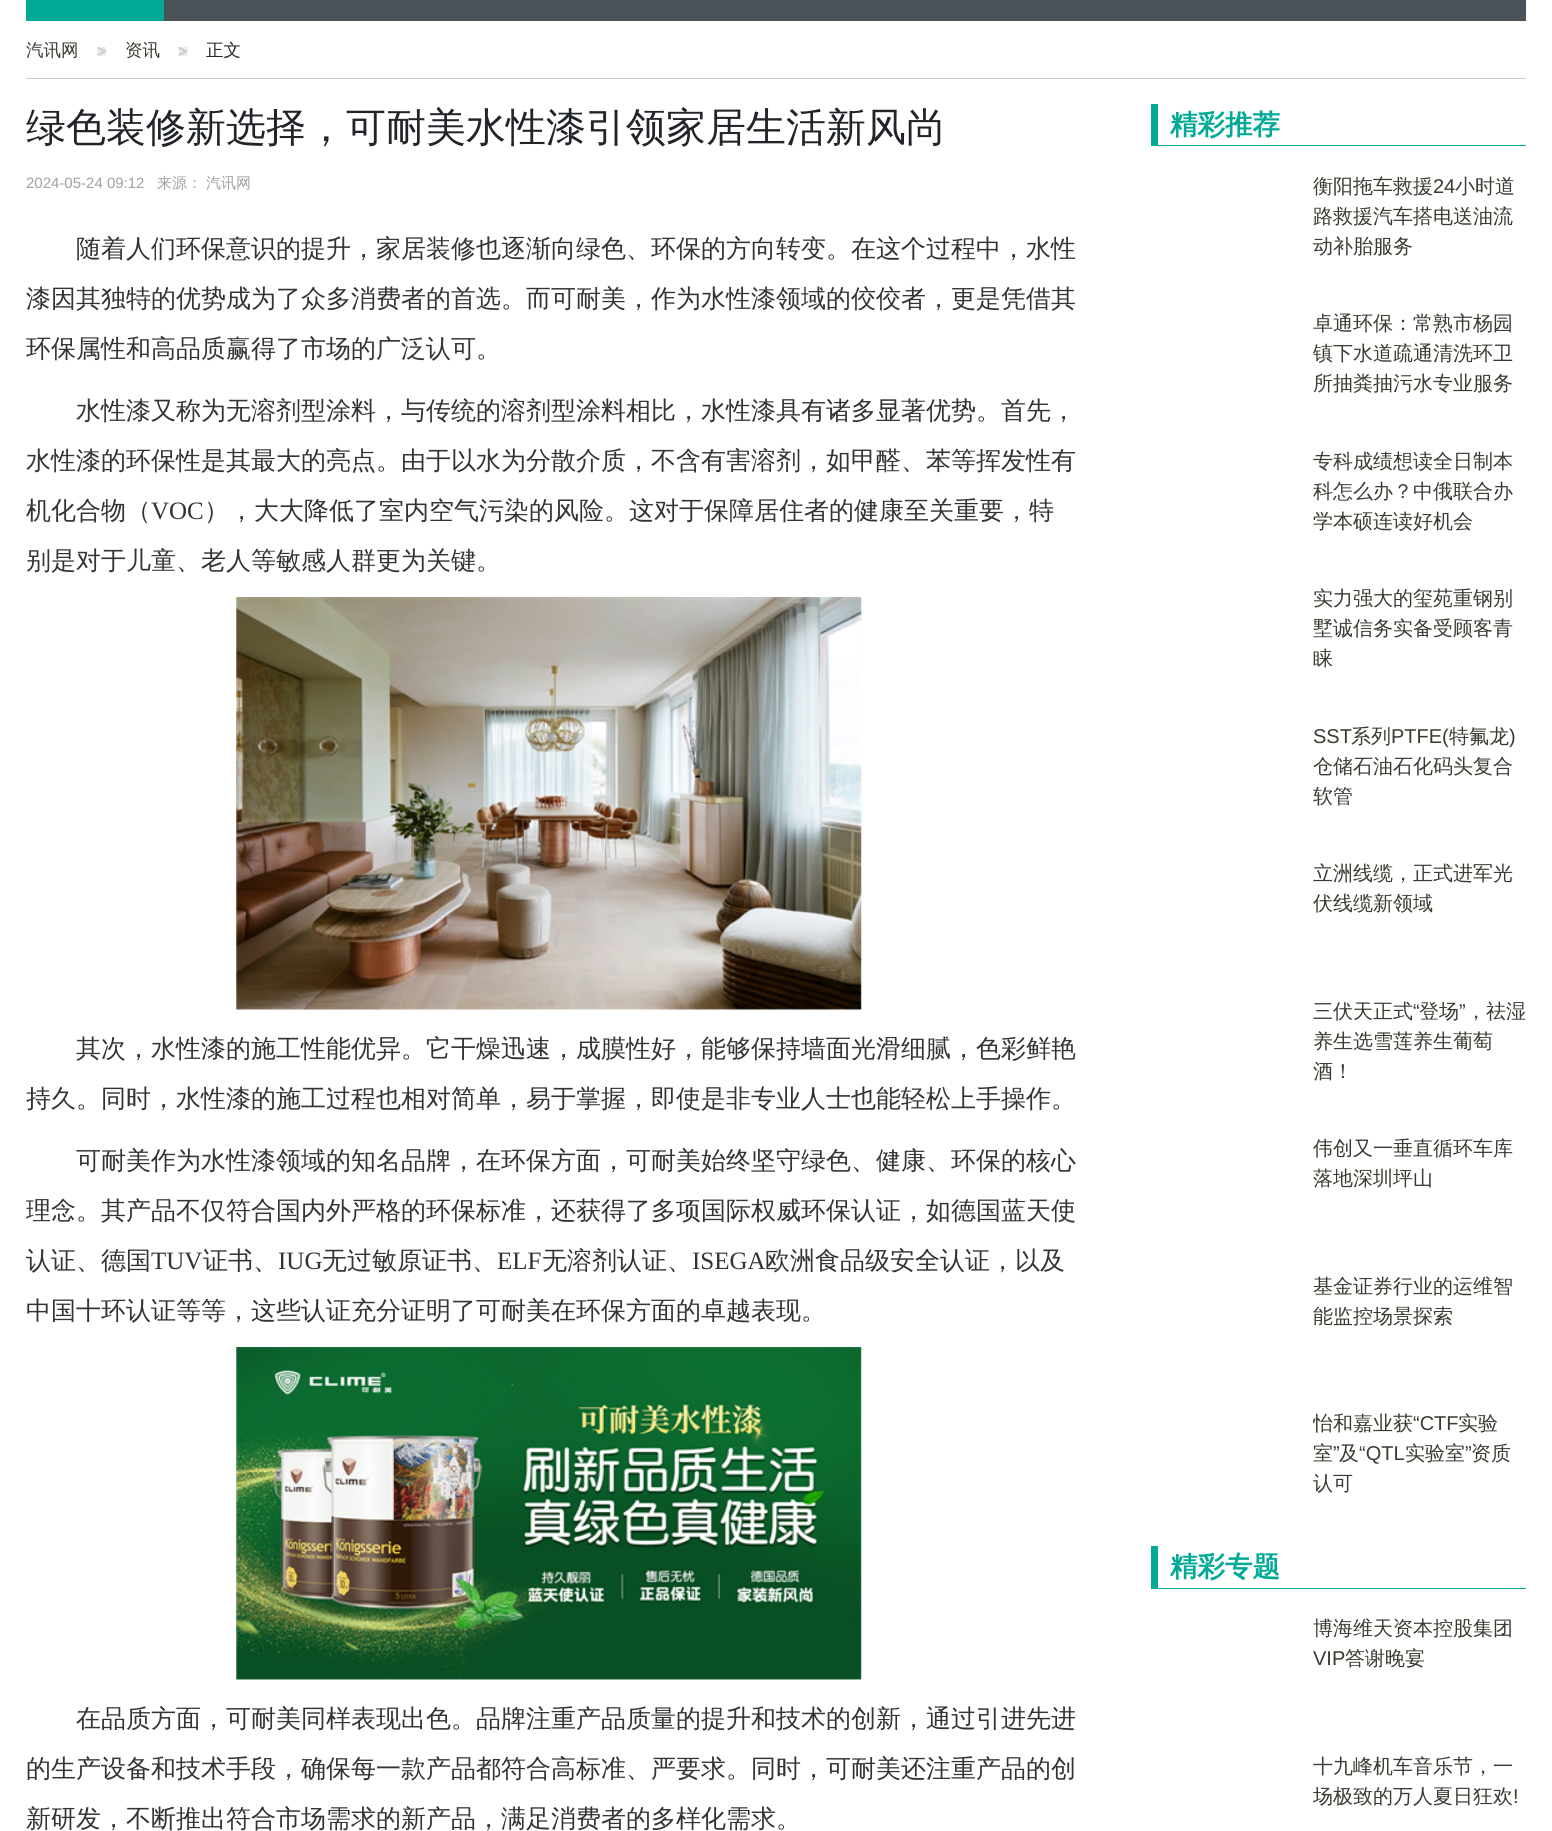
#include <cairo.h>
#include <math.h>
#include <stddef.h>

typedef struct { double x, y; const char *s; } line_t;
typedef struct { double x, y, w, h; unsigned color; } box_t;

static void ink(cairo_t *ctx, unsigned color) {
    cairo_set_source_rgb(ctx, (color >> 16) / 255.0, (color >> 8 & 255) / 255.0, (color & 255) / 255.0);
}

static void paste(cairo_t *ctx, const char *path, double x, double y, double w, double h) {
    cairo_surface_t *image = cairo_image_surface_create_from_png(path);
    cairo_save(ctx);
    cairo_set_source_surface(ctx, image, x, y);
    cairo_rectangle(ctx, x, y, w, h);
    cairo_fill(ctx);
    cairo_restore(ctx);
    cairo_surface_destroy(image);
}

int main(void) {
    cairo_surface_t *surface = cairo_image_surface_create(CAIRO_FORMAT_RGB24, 1552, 1831);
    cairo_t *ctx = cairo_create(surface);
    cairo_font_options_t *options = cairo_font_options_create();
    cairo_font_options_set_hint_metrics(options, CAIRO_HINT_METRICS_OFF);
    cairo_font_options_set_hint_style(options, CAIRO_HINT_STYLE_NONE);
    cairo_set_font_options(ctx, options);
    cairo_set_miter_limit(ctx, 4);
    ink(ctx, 0xFFFFFF);
    cairo_paint(ctx);
    {
        static const box_t items[] = {
            {164, 0, 1362, 21, 0x4C5358},
            {26, 0, 138, 21, 0x00AA96},
            {26, 78, 1500, 1, 0xCCCCCC},
        };
        for (size_t i = 0; i < sizeof items / sizeof *items; i++) {
            ink(ctx, items[i].color);
            cairo_rectangle(ctx, items[i].x, items[i].y, items[i].w, items[i].h);
            cairo_fill(ctx);
        }
    }
    paste(ctx, "media/1.png", 97, 47, 10, 9);
    cairo_select_font_face(ctx, "WenQuanYi Zen Hei Medium", CAIRO_FONT_SLANT_NORMAL, CAIRO_FONT_WEIGHT_NORMAL);
    cairo_set_font_size(ctx, 17.5);
    ink(ctx, 0x3A3A31);
    cairo_move_to(ctx, 26, 56);
    cairo_show_text(ctx, "汽讯网");
    paste(ctx, "media/2.png", 178, 47, 10, 9);
    cairo_move_to(ctx, 125, 56);
    cairo_show_text(ctx, "资讯");
    ink(ctx, 0x212529);
    cairo_move_to(ctx, 206, 56);
    cairo_show_text(ctx, "正文");
    cairo_set_font_size(ctx, 40);
    cairo_move_to(ctx, 26, 141);
    cairo_show_text(ctx, "绿色装修新选择，可耐美水性漆引领家居生活新风尚");
    cairo_select_font_face(ctx, "Liberation Sans", CAIRO_FONT_SLANT_NORMAL, CAIRO_FONT_WEIGHT_NORMAL);
    cairo_set_font_size(ctx, 15);
    ink(ctx, 0xA1A1A1);
    cairo_move_to(ctx, 26, 188);
    cairo_show_text(ctx, "2024-05-24 09:12");
    cairo_select_font_face(ctx, "WenQuanYi Zen Hei Medium", CAIRO_FONT_SLANT_NORMAL, CAIRO_FONT_WEIGHT_NORMAL);
    cairo_move_to(ctx, 157, 188);
    cairo_show_text(ctx, "来源：");
    cairo_move_to(ctx, 206, 188);
    cairo_show_text(ctx, "汽讯网");
    cairo_set_font_size(ctx, 25);
    ink(ctx, 0x333333);
    {
        static const line_t items[] = {
            {76, 257, "随着人们环保意识的提升，家居装修也逐渐向绿色、环保的方向转变。在这个过程中，水性"},
            {26, 307, "漆因其独特的优势成为了众多消费者的首选。而可耐美，作为水性漆领域的佼佼者，更是凭借其"},
            {26, 357, "环保属性和高品质赢得了市场的广泛认可。"},
            {76, 419, "水性漆又称为无溶剂型涂料，与传统的溶剂型涂料相比，水性漆具有诸多显著优势。首先，"},
            {26, 469, "水性漆的环保性是其最大的亮点。由于以水为分散介质，不含有害溶剂，如甲醛、苯等挥发性有"},
            {26, 519, "机化合物（"},
        };
        for (size_t i = 0; i < sizeof items / sizeof *items; i++) {
            cairo_move_to(ctx, items[i].x, items[i].y);
            cairo_show_text(ctx, items[i].s);
        }
    }
    cairo_select_font_face(ctx, "Liberation Serif", CAIRO_FONT_SLANT_NORMAL, CAIRO_FONT_WEIGHT_NORMAL);
    cairo_move_to(ctx, 151, 519);
    cairo_show_text(ctx, "VOC");
    cairo_select_font_face(ctx, "WenQuanYi Zen Hei Medium", CAIRO_FONT_SLANT_NORMAL, CAIRO_FONT_WEIGHT_NORMAL);
    cairo_move_to(ctx, 204, 519);
    cairo_show_text(ctx, "），大大降低了室内空气污染的风险。这对于保障居住者的健康至关重要，特");
    cairo_move_to(ctx, 26, 569);
    cairo_show_text(ctx, "别是对于儿童、老人等敏感人群更为关键。");
    paste(ctx, "media/3.png", 236, 597, 626, 413);
    {
        static const line_t items[] = {
            {76, 1057, "其次，水性漆的施工性能优异。它干燥迅速，成膜性好，能够保持墙面光滑细腻，色彩鲜艳"},
            {26, 1107, "持久。同时，水性漆的施工过程也相对简单，易于掌握，即使是非专业人士也能轻松上手操作。"},
            {76, 1169, "可耐美作为水性漆领域的知名品牌，在环保方面，可耐美始终坚守绿色、健康、环保的核心"},
            {26, 1219, "理念。其产品不仅符合国内外严格的环保标准，还获得了多项国际权威环保认证，如德国蓝天使"},
            {26, 1269, "认证、德国"},
        };
        for (size_t i = 0; i < sizeof items / sizeof *items; i++) {
            cairo_move_to(ctx, items[i].x, items[i].y);
            cairo_show_text(ctx, items[i].s);
        }
    }
    cairo_select_font_face(ctx, "Liberation Serif", CAIRO_FONT_SLANT_NORMAL, CAIRO_FONT_WEIGHT_NORMAL);
    cairo_move_to(ctx, 151, 1269);
    cairo_show_text(ctx, "TUV");
    cairo_select_font_face(ctx, "WenQuanYi Zen Hei Medium", CAIRO_FONT_SLANT_NORMAL, CAIRO_FONT_WEIGHT_NORMAL);
    cairo_move_to(ctx, 203, 1269);
    cairo_show_text(ctx, "证书、");
    cairo_select_font_face(ctx, "Liberation Serif", CAIRO_FONT_SLANT_NORMAL, CAIRO_FONT_WEIGHT_NORMAL);
    cairo_move_to(ctx, 278, 1269);
    cairo_show_text(ctx, "IUG");
    cairo_select_font_face(ctx, "WenQuanYi Zen Hei Medium", CAIRO_FONT_SLANT_NORMAL, CAIRO_FONT_WEIGHT_NORMAL);
    cairo_move_to(ctx, 322, 1269);
    cairo_show_text(ctx, "无过敏原证书、");
    cairo_select_font_face(ctx, "Liberation Serif", CAIRO_FONT_SLANT_NORMAL, CAIRO_FONT_WEIGHT_NORMAL);
    cairo_move_to(ctx, 497, 1269);
    cairo_show_text(ctx, "ELF");
    cairo_select_font_face(ctx, "WenQuanYi Zen Hei Medium", CAIRO_FONT_SLANT_NORMAL, CAIRO_FONT_WEIGHT_NORMAL);
    cairo_move_to(ctx, 542, 1269);
    cairo_show_text(ctx, "无溶剂认证、");
    cairo_select_font_face(ctx, "Liberation Serif", CAIRO_FONT_SLANT_NORMAL, CAIRO_FONT_WEIGHT_NORMAL);
    cairo_move_to(ctx, 692, 1269);
    cairo_show_text(ctx, "ISEGA");
    cairo_select_font_face(ctx, "WenQuanYi Zen Hei Medium", CAIRO_FONT_SLANT_NORMAL, CAIRO_FONT_WEIGHT_NORMAL);
    cairo_move_to(ctx, 765, 1269);
    cairo_show_text(ctx, "欧洲食品级安全认证，以及");
    cairo_move_to(ctx, 26, 1319);
    cairo_show_text(ctx, "中国十环认证等等，这些认证充分证明了可耐美在环保方面的卓越表现。");
    paste(ctx, "media/4.png", 236, 1347, 626, 333);
    {
        static const line_t items[] = {
            {76, 1727, "在品质方面，可耐美同样表现出色。品牌注重产品质量的提升和技术的创新，通过引进先进"},
            {26, 1777, "的生产设备和技术手段，确保每一款产品都符合高标准、严要求。同时，可耐美还注重产品的创"},
            {26, 1827, "新研发，不断推出符合市场需求的新产品，满足消费者的多样化需求。"},
        };
        for (size_t i = 0; i < sizeof items / sizeof *items; i++) {
            cairo_move_to(ctx, items[i].x, items[i].y);
            cairo_show_text(ctx, items[i].s);
        }
    }
    ink(ctx, 0x00AA96);
    cairo_rectangle(ctx, 1151, 145, 375, 1);
    cairo_fill(ctx);
    cairo_rectangle(ctx, 1151, 104, 7, 42);
    cairo_fill(ctx);
    cairo_select_font_face(ctx, "WenQuanYi Zen Hei", CAIRO_FONT_SLANT_NORMAL, CAIRO_FONT_WEIGHT_BOLD);
    cairo_set_font_size(ctx, 27.5);
    cairo_move_to(ctx, 1170, 134);
    cairo_show_text(ctx, "精彩推荐");
    cairo_select_font_face(ctx, "WenQuanYi Zen Hei Medium", CAIRO_FONT_SLANT_NORMAL, CAIRO_FONT_WEIGHT_NORMAL);
    cairo_set_font_size(ctx, 20);
    ink(ctx, 0x3A3A31);
    cairo_move_to(ctx, 1313, 193);
    cairo_show_text(ctx, "衡阳拖车救援");
    cairo_select_font_face(ctx, "Liberation Sans", CAIRO_FONT_SLANT_NORMAL, CAIRO_FONT_WEIGHT_NORMAL);
    cairo_move_to(ctx, 1433, 193);
    cairo_show_text(ctx, "24");
    cairo_select_font_face(ctx, "WenQuanYi Zen Hei Medium", CAIRO_FONT_SLANT_NORMAL, CAIRO_FONT_WEIGHT_NORMAL);
    {
        static const line_t items[] = {
            {1455, 193, "小时道"},
            {1313, 223, "路救援汽车搭电送油流"},
            {1313, 253, "动补胎服务"},
            {1313, 330, "卓通环保：常熟市杨园"},
            {1313, 360, "镇下水道疏通清洗环卫"},
            {1313, 390, "所抽粪抽污水专业服务"},
            {1313, 468, "专科成绩想读全日制本"},
            {1313, 498, "科怎么办？中俄联合办"},
            {1313, 528, "学本硕连读好机会"},
            {1313, 605, "实力强大的玺苑重钢别"},
            {1313, 635, "墅诚信务实备受顾客青"},
            {1313, 665, "睐"},
        };
        for (size_t i = 0; i < sizeof items / sizeof *items; i++) {
            cairo_move_to(ctx, items[i].x, items[i].y);
            cairo_show_text(ctx, items[i].s);
        }
    }
    cairo_select_font_face(ctx, "Liberation Sans", CAIRO_FONT_SLANT_NORMAL, CAIRO_FONT_WEIGHT_NORMAL);
    cairo_move_to(ctx, 1313, 743);
    cairo_show_text(ctx, "SST");
    cairo_select_font_face(ctx, "WenQuanYi Zen Hei Medium", CAIRO_FONT_SLANT_NORMAL, CAIRO_FONT_WEIGHT_NORMAL);
    cairo_move_to(ctx, 1351, 743);
    cairo_show_text(ctx, "系列");
    cairo_select_font_face(ctx, "Liberation Sans", CAIRO_FONT_SLANT_NORMAL, CAIRO_FONT_WEIGHT_NORMAL);
    cairo_move_to(ctx, 1391, 743);
    cairo_show_text(ctx, "PTFE(");
    cairo_select_font_face(ctx, "WenQuanYi Zen Hei Medium", CAIRO_FONT_SLANT_NORMAL, CAIRO_FONT_WEIGHT_NORMAL);
    cairo_move_to(ctx, 1449, 743);
    cairo_show_text(ctx, "特氟龙");
    cairo_select_font_face(ctx, "Liberation Sans", CAIRO_FONT_SLANT_NORMAL, CAIRO_FONT_WEIGHT_NORMAL);
    cairo_move_to(ctx, 1509, 743);
    cairo_show_text(ctx, ")");
    cairo_select_font_face(ctx, "WenQuanYi Zen Hei Medium", CAIRO_FONT_SLANT_NORMAL, CAIRO_FONT_WEIGHT_NORMAL);
    {
        static const line_t items[] = {
            {1313, 773, "仓储石油石化码头复合"},
            {1313, 803, "软管"},
            {1313, 880, "立洲线缆，正式进军光"},
            {1313, 910, "伏线缆新领域"},
            {1313, 1018, "三伏天正式"},
        };
        for (size_t i = 0; i < sizeof items / sizeof *items; i++) {
            cairo_move_to(ctx, items[i].x, items[i].y);
            cairo_show_text(ctx, items[i].s);
        }
    }
    cairo_select_font_face(ctx, "Liberation Sans", CAIRO_FONT_SLANT_NORMAL, CAIRO_FONT_WEIGHT_NORMAL);
    cairo_move_to(ctx, 1413, 1018);
    cairo_show_text(ctx, "“");
    cairo_select_font_face(ctx, "WenQuanYi Zen Hei Medium", CAIRO_FONT_SLANT_NORMAL, CAIRO_FONT_WEIGHT_NORMAL);
    cairo_move_to(ctx, 1419, 1018);
    cairo_show_text(ctx, "登场");
    cairo_select_font_face(ctx, "Liberation Sans", CAIRO_FONT_SLANT_NORMAL, CAIRO_FONT_WEIGHT_NORMAL);
    cairo_move_to(ctx, 1459, 1018);
    cairo_show_text(ctx, "”");
    cairo_select_font_face(ctx, "WenQuanYi Zen Hei Medium", CAIRO_FONT_SLANT_NORMAL, CAIRO_FONT_WEIGHT_NORMAL);
    {
        static const line_t items[] = {
            {1466, 1018, "，祛湿"},
            {1313, 1048, "养生选雪莲养生葡萄"},
            {1313, 1078, "酒！"},
            {1313, 1155, "伟创又一垂直循环车库"},
            {1313, 1185, "落地深圳坪山"},
            {1313, 1293, "基金证券行业的运维智"},
            {1313, 1323, "能监控场景探索"},
        };
        for (size_t i = 0; i < sizeof items / sizeof *items; i++) {
            cairo_move_to(ctx, items[i].x, items[i].y);
            cairo_show_text(ctx, items[i].s);
        }
    }
    cairo_save(ctx);
    cairo_rectangle(ctx, 1313, 1409, 213, 112);
    cairo_clip(ctx);
    cairo_move_to(ctx, 1313, 1430);
    cairo_show_text(ctx, "怡和嘉业获");
    cairo_restore(ctx);
    cairo_select_font_face(ctx, "Liberation Sans", CAIRO_FONT_SLANT_NORMAL, CAIRO_FONT_WEIGHT_NORMAL);
    cairo_move_to(ctx, 1413, 1430);
    cairo_show_text(ctx, "“CTF");
    cairo_select_font_face(ctx, "WenQuanYi Zen Hei Medium", CAIRO_FONT_SLANT_NORMAL, CAIRO_FONT_WEIGHT_NORMAL);
    cairo_move_to(ctx, 1458, 1430);
    cairo_show_text(ctx, "实验");
    cairo_move_to(ctx, 1313, 1460);
    cairo_show_text(ctx, "室");
    cairo_select_font_face(ctx, "Liberation Sans", CAIRO_FONT_SLANT_NORMAL, CAIRO_FONT_WEIGHT_NORMAL);
    cairo_move_to(ctx, 1333, 1460);
    cairo_show_text(ctx, "”");
    cairo_select_font_face(ctx, "WenQuanYi Zen Hei Medium", CAIRO_FONT_SLANT_NORMAL, CAIRO_FONT_WEIGHT_NORMAL);
    cairo_move_to(ctx, 1339, 1460);
    cairo_show_text(ctx, "及");
    cairo_select_font_face(ctx, "Liberation Sans", CAIRO_FONT_SLANT_NORMAL, CAIRO_FONT_WEIGHT_NORMAL);
    cairo_move_to(ctx, 1359, 1460);
    cairo_show_text(ctx, "“QTL");
    cairo_select_font_face(ctx, "WenQuanYi Zen Hei Medium", CAIRO_FONT_SLANT_NORMAL, CAIRO_FONT_WEIGHT_NORMAL);
    cairo_move_to(ctx, 1405, 1460);
    cairo_show_text(ctx, "实验室");
    cairo_select_font_face(ctx, "Liberation Sans", CAIRO_FONT_SLANT_NORMAL, CAIRO_FONT_WEIGHT_NORMAL);
    cairo_move_to(ctx, 1465, 1460);
    cairo_show_text(ctx, "”");
    cairo_select_font_face(ctx, "WenQuanYi Zen Hei Medium", CAIRO_FONT_SLANT_NORMAL, CAIRO_FONT_WEIGHT_NORMAL);
    cairo_move_to(ctx, 1471, 1460);
    cairo_show_text(ctx, "资质");
    cairo_move_to(ctx, 1313, 1490);
    cairo_show_text(ctx, "认可");
    ink(ctx, 0x00AA96);
    cairo_rectangle(ctx, 1151, 1588, 375, 1);
    cairo_fill(ctx);
    cairo_rectangle(ctx, 1151, 1546, 7, 43);
    cairo_fill(ctx);
    cairo_select_font_face(ctx, "WenQuanYi Zen Hei", CAIRO_FONT_SLANT_NORMAL, CAIRO_FONT_WEIGHT_BOLD);
    cairo_set_font_size(ctx, 27.5);
    cairo_move_to(ctx, 1170, 1576);
    cairo_show_text(ctx, "精彩专题");
    cairo_select_font_face(ctx, "WenQuanYi Zen Hei Medium", CAIRO_FONT_SLANT_NORMAL, CAIRO_FONT_WEIGHT_NORMAL);
    cairo_set_font_size(ctx, 20);
    ink(ctx, 0x3A3A31);
    cairo_move_to(ctx, 1313, 1635);
    cairo_show_text(ctx, "博海维天资本控股集团");
    cairo_select_font_face(ctx, "Liberation Sans", CAIRO_FONT_SLANT_NORMAL, CAIRO_FONT_WEIGHT_NORMAL);
    cairo_move_to(ctx, 1313, 1665);
    cairo_show_text(ctx, "VIP");
    cairo_select_font_face(ctx, "WenQuanYi Zen Hei Medium", CAIRO_FONT_SLANT_NORMAL, CAIRO_FONT_WEIGHT_NORMAL);
    {
        static const line_t items[] = {
            {1345, 1665, "答谢晚宴"},
            {1313, 1773, "十九峰机车音乐节，一"},
            {1313, 1803, "场极致的万人夏日狂欢"},
        };
        for (size_t i = 0; i < sizeof items / sizeof *items; i++) {
            cairo_move_to(ctx, items[i].x, items[i].y);
            cairo_show_text(ctx, items[i].s);
        }
    }
    cairo_select_font_face(ctx, "Liberation Sans", CAIRO_FONT_SLANT_NORMAL, CAIRO_FONT_WEIGHT_NORMAL);
    cairo_move_to(ctx, 1513, 1803);
    cairo_show_text(ctx, "!");
    cairo_surface_write_to_png(surface, "image.png");
    cairo_font_options_destroy(options);
    cairo_destroy(ctx);
    cairo_surface_destroy(surface);
    return 0;
}
